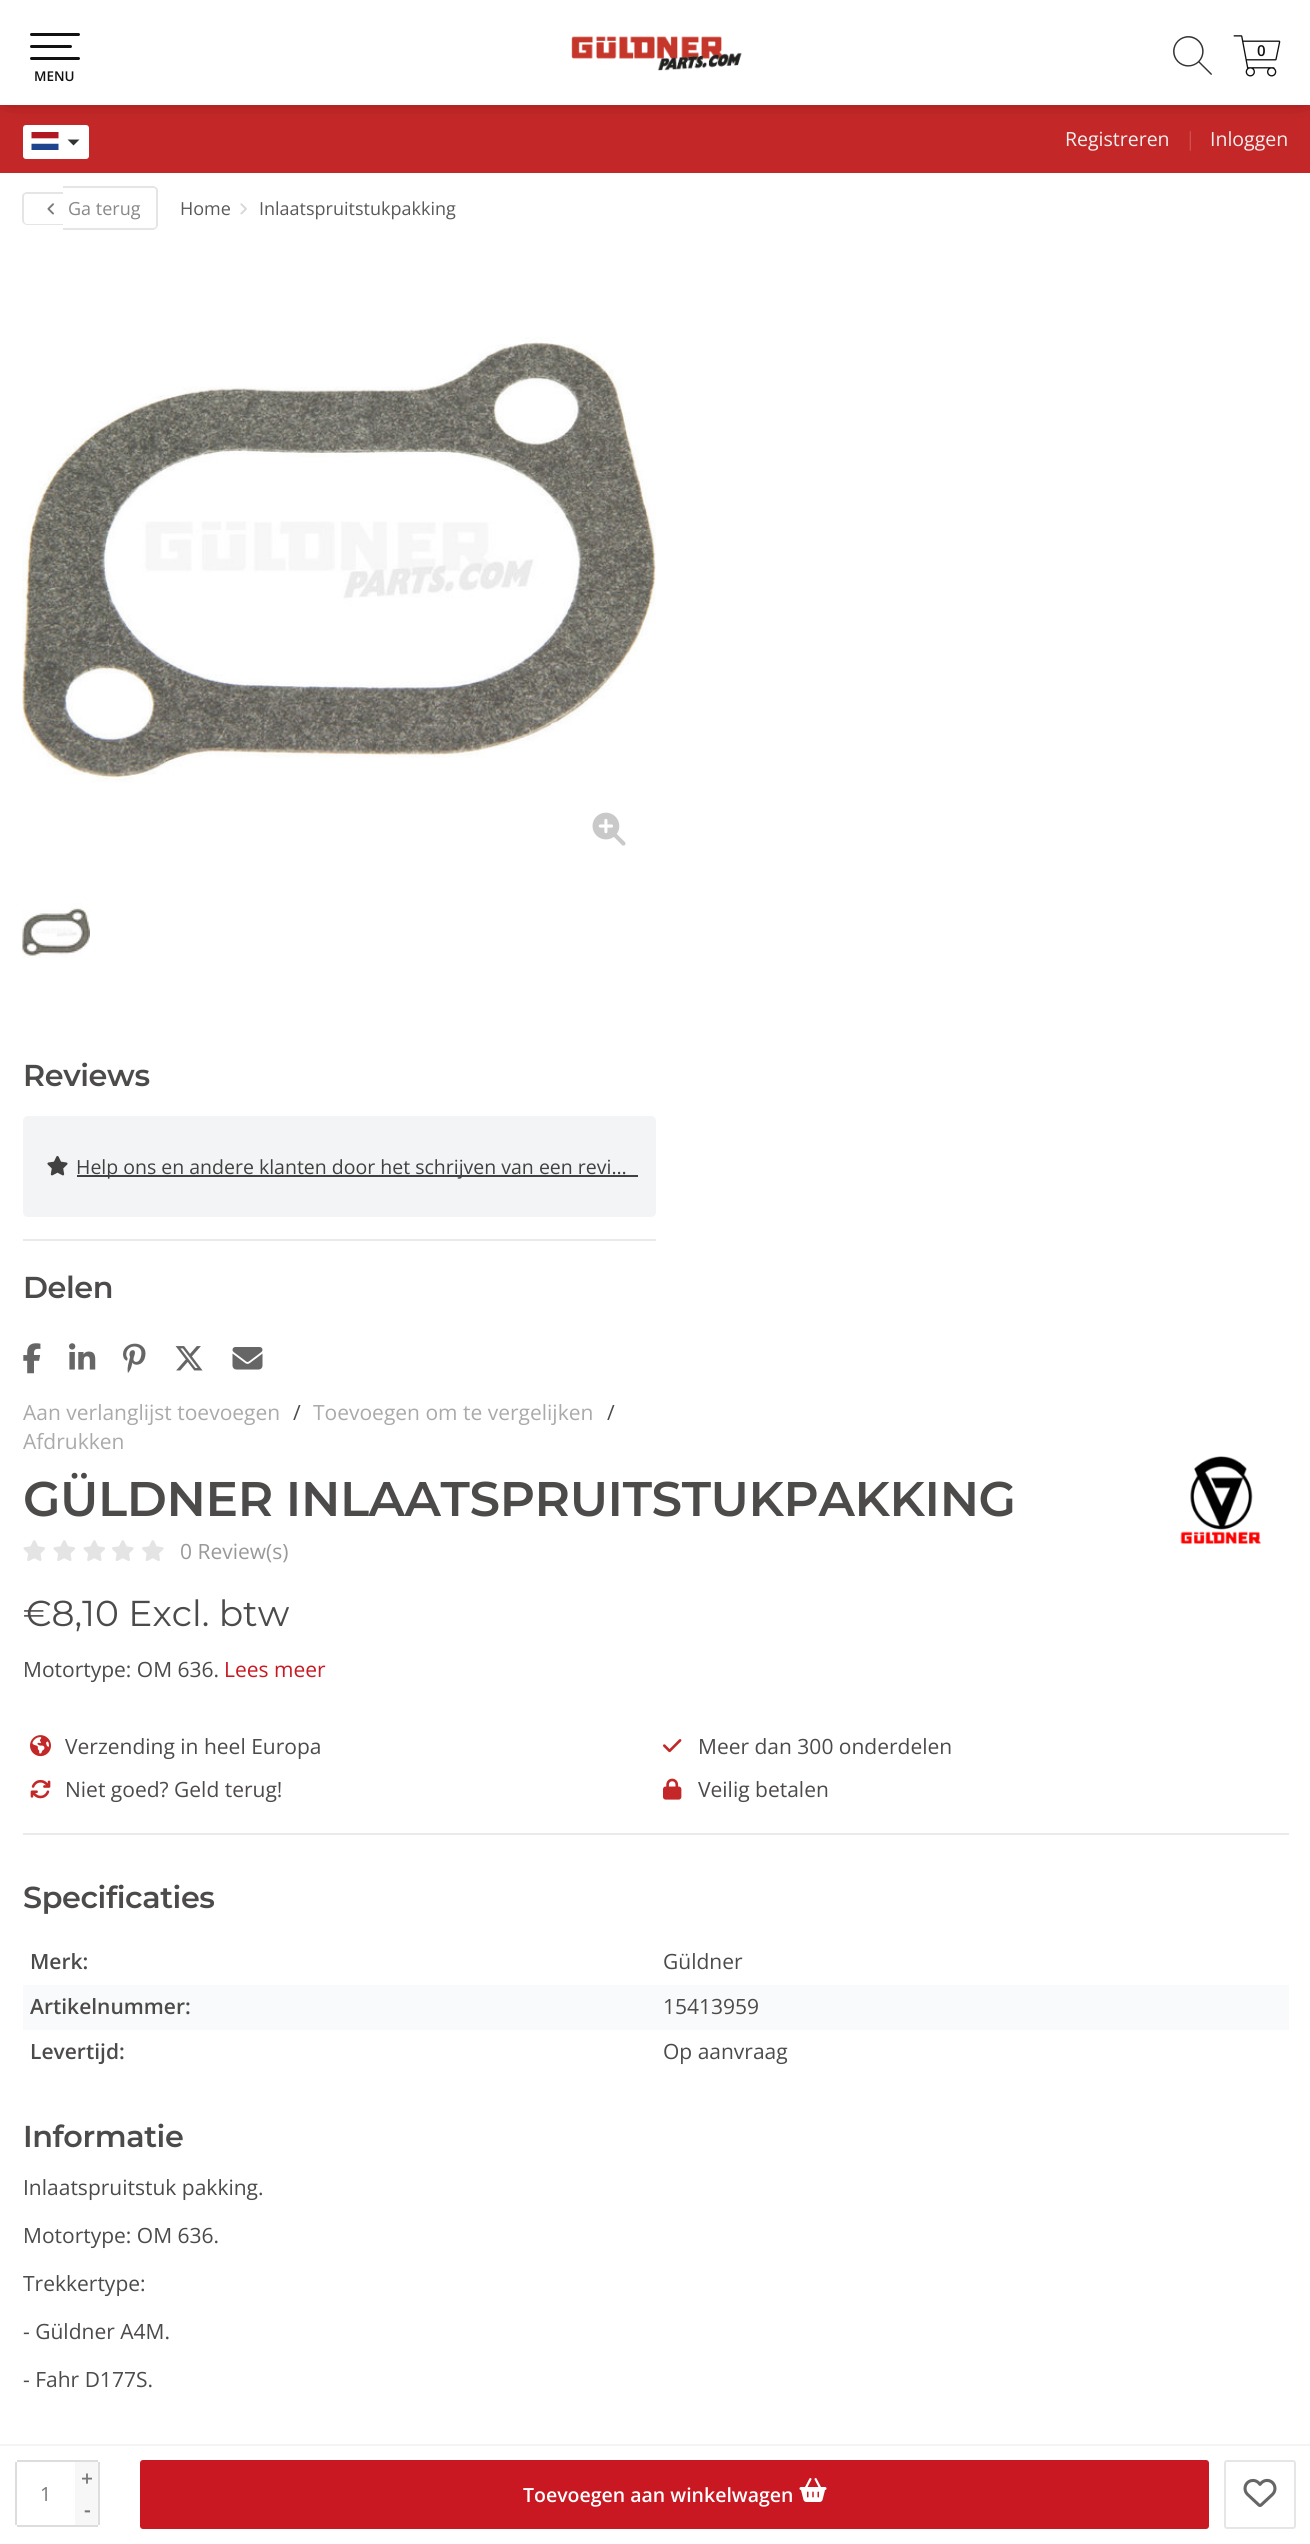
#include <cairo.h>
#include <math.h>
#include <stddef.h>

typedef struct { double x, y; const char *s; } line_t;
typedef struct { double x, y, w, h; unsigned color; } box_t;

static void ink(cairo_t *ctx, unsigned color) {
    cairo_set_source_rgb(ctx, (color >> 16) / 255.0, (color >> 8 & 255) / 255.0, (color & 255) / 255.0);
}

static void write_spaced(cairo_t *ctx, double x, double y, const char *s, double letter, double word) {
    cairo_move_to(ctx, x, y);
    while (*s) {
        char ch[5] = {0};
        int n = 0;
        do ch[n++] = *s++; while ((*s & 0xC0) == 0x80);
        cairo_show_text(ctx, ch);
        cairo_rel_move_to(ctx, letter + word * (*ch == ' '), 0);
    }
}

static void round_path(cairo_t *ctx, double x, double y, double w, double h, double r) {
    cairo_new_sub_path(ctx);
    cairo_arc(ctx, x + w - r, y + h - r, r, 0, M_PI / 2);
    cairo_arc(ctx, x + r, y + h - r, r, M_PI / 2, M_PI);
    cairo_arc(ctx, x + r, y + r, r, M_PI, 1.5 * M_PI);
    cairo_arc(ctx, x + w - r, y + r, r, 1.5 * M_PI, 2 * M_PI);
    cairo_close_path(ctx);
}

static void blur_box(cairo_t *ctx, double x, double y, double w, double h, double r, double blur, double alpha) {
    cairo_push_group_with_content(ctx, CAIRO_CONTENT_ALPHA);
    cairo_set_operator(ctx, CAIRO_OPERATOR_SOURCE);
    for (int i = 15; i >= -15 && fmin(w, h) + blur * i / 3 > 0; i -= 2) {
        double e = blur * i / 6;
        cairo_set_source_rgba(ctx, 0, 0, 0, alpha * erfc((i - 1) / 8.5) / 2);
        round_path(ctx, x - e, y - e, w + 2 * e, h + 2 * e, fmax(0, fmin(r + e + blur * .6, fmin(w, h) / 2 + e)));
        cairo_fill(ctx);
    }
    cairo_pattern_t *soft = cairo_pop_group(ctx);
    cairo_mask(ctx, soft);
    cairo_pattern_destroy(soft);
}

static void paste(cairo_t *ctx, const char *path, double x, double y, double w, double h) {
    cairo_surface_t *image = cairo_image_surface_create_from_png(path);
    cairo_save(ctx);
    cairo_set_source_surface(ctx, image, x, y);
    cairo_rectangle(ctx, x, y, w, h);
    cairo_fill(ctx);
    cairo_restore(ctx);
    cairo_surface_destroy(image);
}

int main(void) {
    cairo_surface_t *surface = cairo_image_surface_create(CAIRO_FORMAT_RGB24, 1310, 2544);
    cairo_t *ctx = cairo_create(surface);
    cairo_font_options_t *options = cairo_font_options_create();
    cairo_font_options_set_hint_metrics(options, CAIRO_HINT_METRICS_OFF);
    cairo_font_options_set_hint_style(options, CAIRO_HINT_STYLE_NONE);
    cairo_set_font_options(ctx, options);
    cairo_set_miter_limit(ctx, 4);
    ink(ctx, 0xFFFFFF);
    cairo_paint(ctx);
    ink(ctx, 0xC42727);
    cairo_rectangle(ctx, 0, 105, 1310, 68);
    cairo_fill(ctx);
    ink(ctx, 0xFFFFFF);
    round_path(ctx, 24, 126, 64, 32, 2);
    cairo_fill_preserve(ctx);
    cairo_stroke(ctx);
    ink(ctx, 0x000000);
    blur_box(ctx, 9, 9, 1293, 72, 0, 15, 1);
    blur_box(ctx, 9, 9, 1293, 72, 0, 15, 1);
    ink(ctx, 0xFFFFFF);
    cairo_rectangle(ctx, 0, 0, 1310, 105);
    cairo_fill(ctx);
    paste(ctx, "media/1.png", 571, 36, 171, 35);
    paste(ctx, "media/2.png", 1173, 36, 39, 39);
    paste(ctx, "media/3.png", 1233, 35, 48, 42);
    cairo_select_font_face(ctx, "Open Sans SemiBold", CAIRO_FONT_SLANT_NORMAL, CAIRO_FONT_WEIGHT_NORMAL);
    cairo_set_font_size(ctx, 15);
    ink(ctx, 0x111111);
    cairo_move_to(ctx, 1257, 56);
    cairo_show_text(ctx, "0");
    round_path(ctx, 30, 33, 50, 3, 1.5);
    cairo_fill(ctx);
    round_path(ctx, 30, 45, 42, 3, 1.5);
    cairo_fill(ctx);
    round_path(ctx, 30, 57, 50, 3, 1.5);
    cairo_fill(ctx);
    cairo_set_font_size(ctx, 13.5);
    cairo_move_to(ctx, 34, 81);
    cairo_show_text(ctx, "MENU");
    paste(ctx, "media/4.png", 31, 132, 28, 18);
    ink(ctx, 0x333333);
    cairo_new_path(ctx);
    cairo_move_to(ctx, 67.5, 139.5);
    cairo_line_to(ctx, 79.5, 139.5);
    cairo_line_to(ctx, 73.5, 145.5);
    cairo_close_path(ctx);
    cairo_fill(ctx);
    cairo_select_font_face(ctx, "Open Sans", CAIRO_FONT_SLANT_NORMAL, CAIRO_FONT_WEIGHT_NORMAL);
    cairo_set_font_size(ctx, 19.5);
    ink(ctx, 0xEFEFEF);
    cairo_move_to(ctx, 1065, 146);
    cairo_show_text(ctx, "Registreren");
    ink(ctx, 0xCD4F4F);
    cairo_move_to(ctx, 1185, 146);
    cairo_show_text(ctx, "|");
    ink(ctx, 0xEFEFEF);
    cairo_move_to(ctx, 1210, 146);
    cairo_show_text(ctx, "Inloggen");
    ink(ctx, 0xE5E5E5);
    cairo_set_fill_rule(ctx, CAIRO_FILL_RULE_EVEN_ODD);
    cairo_new_path(ctx);
    cairo_move_to(ctx, 27, 192);
    cairo_line_to(ctx, 63, 192);
    cairo_line_to(ctx, 63, 225);
    cairo_line_to(ctx, 27, 225);
    cairo_curve_to(ctx, 25, 225, 22, 223, 22, 220);
    cairo_line_to(ctx, 22, 196);
    cairo_curve_to(ctx, 22, 194, 25, 192, 27, 192);
    cairo_close_path(ctx);
    cairo_move_to(ctx, 27, 194);
    cairo_line_to(ctx, 63, 194);
    cairo_line_to(ctx, 63, 224);
    cairo_line_to(ctx, 27, 224);
    cairo_curve_to(ctx, 25, 224, 24, 222, 24, 220);
    cairo_line_to(ctx, 24, 196);
    cairo_curve_to(ctx, 24, 195, 25, 194, 27, 194);
    cairo_close_path(ctx);
    cairo_fill(ctx);
    cairo_new_path(ctx);
    cairo_move_to(ctx, 63, 186);
    cairo_line_to(ctx, 153, 186);
    cairo_curve_to(ctx, 155, 186, 158, 188, 158, 190);
    cairo_line_to(ctx, 158, 225);
    cairo_curve_to(ctx, 158, 227, 155, 230, 153, 230);
    cairo_line_to(ctx, 63, 230);
    cairo_close_path(ctx);
    cairo_move_to(ctx, 63, 188);
    cairo_line_to(ctx, 153, 188);
    cairo_curve_to(ctx, 155, 188, 156, 189, 156, 190);
    cairo_line_to(ctx, 156, 225);
    cairo_curve_to(ctx, 156, 227, 155, 228, 153, 228);
    cairo_line_to(ctx, 63, 228);
    cairo_close_path(ctx);
    cairo_fill(ctx);
    paste(ctx, "media/5.png", 47, 203, 7, 12);
    cairo_set_font_size(ctx, 18);
    ink(ctx, 0x888888);
    cairo_move_to(ctx, 68, 215);
    cairo_show_text(ctx, "Ga terug");
    ink(ctx, 0x5B5858);
    cairo_move_to(ctx, 180, 215);
    cairo_show_text(ctx, "Home");
    paste(ctx, "media/6.png", 240, 203, 7, 12);
    cairo_move_to(ctx, 259, 215);
    cairo_show_text(ctx, "Inlaatspruitstukpakking");
    paste(ctx, "media/7.png", 22, 337, 634, 446);
    paste(ctx, "media/8.png", 592, 812, 34, 34);
    paste(ctx, "media/9.png", 22, 903, 68, 55);
    cairo_select_font_face(ctx, "Montserrat SemiBold", CAIRO_FONT_SLANT_NORMAL, CAIRO_FONT_WEIGHT_NORMAL);
    cairo_set_font_size(ctx, 30.25);
    ink(ctx, 0x4D4A4A);
    write_spaced(ctx, 23, 1086, "Reviews", -0.4, 0);
    ink(ctx, 0xF3F4F5);
    round_path(ctx, 23, 1116, 633, 101, 5);
    cairo_fill(ctx);
    paste(ctx, "media/10.png", 47, 1156, 21, 20);
    ink(ctx, 0x414141);
    cairo_rectangle(ctx, 77, 1175, 561, 2);
    cairo_fill(ctx);
    cairo_select_font_face(ctx, "Open Sans", CAIRO_FONT_SLANT_NORMAL, CAIRO_FONT_WEIGHT_NORMAL);
    cairo_set_font_size(ctx, 19.5);
    cairo_move_to(ctx, 76, 1174);
    cairo_show_text(ctx, "Help ons en andere klanten door het schrijven van een revi…");
    ink(ctx, 0xEAEAEA);
    cairo_rectangle(ctx, 23, 1239, 633, 2);
    cairo_fill(ctx);
    cairo_select_font_face(ctx, "Montserrat SemiBold", CAIRO_FONT_SLANT_NORMAL, CAIRO_FONT_WEIGHT_NORMAL);
    cairo_set_font_size(ctx, 30.25);
    ink(ctx, 0x4D4A4A);
    write_spaced(ctx, 23, 1298, "Delen", -0.4, 0);
    paste(ctx, "media/11.png", 23, 1343, 18, 31);
    paste(ctx, "media/12.png", 69, 1343, 27, 27);
    paste(ctx, "media/13.png", 123, 1343, 23, 30);
    paste(ctx, "media/14.png", 175, 1346, 28, 25);
    paste(ctx, "media/15.png", 232, 1347, 31, 23);
    cairo_select_font_face(ctx, "Open Sans", CAIRO_FONT_SLANT_NORMAL, CAIRO_FONT_WEIGHT_NORMAL);
    cairo_set_font_size(ctx, 21);
    ink(ctx, 0xAAAAAA);
    cairo_move_to(ctx, 23, 1420);
    cairo_show_text(ctx, "Aan verlanglijst toevoegen");
    ink(ctx, 0x4D4A4A);
    cairo_move_to(ctx, 293, 1420);
    cairo_show_text(ctx, "/");
    ink(ctx, 0xAAAAAA);
    cairo_move_to(ctx, 313, 1420);
    cairo_show_text(ctx, "Toevoegen om te vergelijken");
    ink(ctx, 0x4D4A4A);
    cairo_move_to(ctx, 607, 1420);
    cairo_show_text(ctx, "/");
    ink(ctx, 0xAAAAAA);
    cairo_move_to(ctx, 23, 1449);
    cairo_show_text(ctx, "Afdrukken");
    cairo_select_font_face(ctx, "Montserrat SemiBold", CAIRO_FONT_SLANT_NORMAL, CAIRO_FONT_WEIGHT_NORMAL);
    cairo_set_font_size(ctx, 48.6);
    ink(ctx, 0x4D4A4A);
    write_spaced(ctx, 23, 1516, "GÜLDNER INLAATSPRUITSTUKPAKKING", -0.4, 0);
    paste(ctx, "media/16.png", 1180, 1456, 81, 88);
    paste(ctx, "media/17.png", 23, 1540, 22, 21);
    paste(ctx, "media/17.png", 53, 1540, 22, 21);
    paste(ctx, "media/17.png", 83, 1540, 22, 21);
    paste(ctx, "media/18.png", 112, 1540, 22, 21);
    paste(ctx, "media/18.png", 142, 1540, 22, 21);
    cairo_select_font_face(ctx, "Open Sans", CAIRO_FONT_SLANT_NORMAL, CAIRO_FONT_WEIGHT_NORMAL);
    cairo_set_font_size(ctx, 21);
    ink(ctx, 0x999999);
    cairo_move_to(ctx, 180, 1559);
    cairo_show_text(ctx, "0 Review(s)");
    cairo_select_font_face(ctx, "Montserrat", CAIRO_FONT_SLANT_NORMAL, CAIRO_FONT_WEIGHT_NORMAL);
    cairo_set_font_size(ctx, 36);
    ink(ctx, 0x4D4A4A);
    cairo_move_to(ctx, 23, 1626);
    cairo_show_text(ctx, "€8,10 Excl. btw");
    cairo_select_font_face(ctx, "Open Sans", CAIRO_FONT_SLANT_NORMAL, CAIRO_FONT_WEIGHT_NORMAL);
    cairo_set_font_size(ctx, 21);
    cairo_move_to(ctx, 23, 1677);
    cairo_show_text(ctx, "Motortype: OM 636.");
    ink(ctx, 0xC91821);
    cairo_move_to(ctx, 224, 1677);
    cairo_show_text(ctx, "Lees meer");
    paste(ctx, "media/19.png", 30, 1735, 21, 22);
    ink(ctx, 0x4D4A4A);
    cairo_move_to(ctx, 65, 1754);
    cairo_show_text(ctx, "Verzending in heel Europa");
    paste(ctx, "media/20.png", 663, 1739, 19, 14);
    cairo_move_to(ctx, 698, 1754);
    cairo_show_text(ctx, "Meer dan 300 onderdelen");
    paste(ctx, "media/21.png", 30, 1779, 21, 20);
    cairo_move_to(ctx, 65, 1797);
    cairo_show_text(ctx, "Niet goed? Geld terug!");
    paste(ctx, "media/22.png", 663, 1778, 19, 22);
    cairo_move_to(ctx, 698, 1797);
    cairo_show_text(ctx, "Veilig betalen");
    ink(ctx, 0xEAEAEA);
    cairo_rectangle(ctx, 23, 1833, 1266, 2);
    cairo_fill(ctx);
    cairo_select_font_face(ctx, "Montserrat SemiBold", CAIRO_FONT_SLANT_NORMAL, CAIRO_FONT_WEIGHT_NORMAL);
    cairo_set_font_size(ctx, 30.25);
    ink(ctx, 0x4D4A4A);
    write_spaced(ctx, 23, 1908, "Specificaties", -0.4, 0);
    cairo_select_font_face(ctx, "Open Sans SemiBold", CAIRO_FONT_SLANT_NORMAL, CAIRO_FONT_WEIGHT_NORMAL);
    cairo_set_font_size(ctx, 21);
    cairo_move_to(ctx, 30, 1969);
    cairo_show_text(ctx, "Merk:");
    cairo_select_font_face(ctx, "Open Sans", CAIRO_FONT_SLANT_NORMAL, CAIRO_FONT_WEIGHT_NORMAL);
    cairo_move_to(ctx, 663, 1969);
    cairo_show_text(ctx, "Güldner");
    ink(ctx, 0xF9FAFB);
    cairo_rectangle(ctx, 23, 1985, 1266, 45);
    cairo_fill(ctx);
    cairo_select_font_face(ctx, "Open Sans SemiBold", CAIRO_FONT_SLANT_NORMAL, CAIRO_FONT_WEIGHT_NORMAL);
    ink(ctx, 0x4D4A4A);
    cairo_move_to(ctx, 30, 2014);
    cairo_show_text(ctx, "Artikelnummer:");
    cairo_select_font_face(ctx, "Open Sans", CAIRO_FONT_SLANT_NORMAL, CAIRO_FONT_WEIGHT_NORMAL);
    cairo_move_to(ctx, 663, 2014);
    cairo_show_text(ctx, "15413959");
    cairo_select_font_face(ctx, "Open Sans SemiBold", CAIRO_FONT_SLANT_NORMAL, CAIRO_FONT_WEIGHT_NORMAL);
    cairo_move_to(ctx, 30, 2059);
    cairo_show_text(ctx, "Levertijd:");
    cairo_select_font_face(ctx, "Open Sans", CAIRO_FONT_SLANT_NORMAL, CAIRO_FONT_WEIGHT_NORMAL);
    cairo_move_to(ctx, 663, 2059);
    cairo_show_text(ctx, "Op aanvraag");
    cairo_select_font_face(ctx, "Montserrat SemiBold", CAIRO_FONT_SLANT_NORMAL, CAIRO_FONT_WEIGHT_NORMAL);
    cairo_set_font_size(ctx, 30.25);
    write_spaced(ctx, 23, 2147, "Informatie", -0.4, 0);
    cairo_select_font_face(ctx, "Open Sans", CAIRO_FONT_SLANT_NORMAL, CAIRO_FONT_WEIGHT_NORMAL);
    cairo_set_font_size(ctx, 21);
    {
        static const line_t items[] = {
            {23, 2195, "Inlaatspruitstuk pakking."},
            {23, 2243, "Motortype: OM 636."},
            {23, 2291, "Trekkertype:"},
            {23, 2339, "- Güldner A4M."},
            {23, 2387, "- Fahr D177S."},
        };
        for (size_t i = 0; i < sizeof items / sizeof *items; i++) {
            cairo_move_to(ctx, items[i].x, items[i].y);
            cairo_show_text(ctx, items[i].s);
        }
    }
    {
        static const box_t items[] = {
            {0, 2444, 1310, 2, 0xF4F4F4},
            {17, 2460, 58, 2, 0xDDDDDD},
            {17, 2525, 58, 2, 0xDDDDDD},
            {15, 2462, 2, 63, 0xDDDDDD},
        };
        for (size_t i = 0; i < sizeof items / sizeof *items; i++) {
            ink(ctx, items[i].color);
            cairo_rectangle(ctx, items[i].x, items[i].y, items[i].w, items[i].h);
            cairo_fill(ctx);
        }
    }
    cairo_set_font_size(ctx, 19.5);
    ink(ctx, 0x777777);
    cairo_move_to(ctx, 40, 2501);
    cairo_show_text(ctx, "1");
    ink(ctx, 0xF7F7F7);
    cairo_new_path(ctx);
    cairo_move_to(ctx, 75, 2460);
    cairo_line_to(ctx, 96, 2460);
    cairo_curve_to(ctx, 97.5, 2460, 99, 2461.5, 99, 2463);
    cairo_line_to(ctx, 99, 2523);
    cairo_curve_to(ctx, 99, 2524.5, 97.5, 2526, 96, 2526);
    cairo_line_to(ctx, 75, 2526);
    cairo_close_path(ctx);
    cairo_fill(ctx);
    {
        static const box_t items[] = {
            {75, 2460, 23, 2, 0xDDDDDD},
            {98, 2462, 2, 63, 0xDDDDDD},
            {75, 2525, 23, 2, 0xDDDDDD},
        };
        for (size_t i = 0; i < sizeof items / sizeof *items; i++) {
            ink(ctx, items[i].color);
            cairo_rectangle(ctx, items[i].x, items[i].y, items[i].w, items[i].h);
            cairo_fill(ctx);
        }
    }
    cairo_select_font_face(ctx, "Open Sans SemiBold", CAIRO_FONT_SLANT_NORMAL, CAIRO_FONT_WEIGHT_NORMAL);
    cairo_set_font_size(ctx, 21);
    ink(ctx, 0x777777);
    cairo_move_to(ctx, 81, 2486);
    cairo_show_text(ctx, "+");
    cairo_move_to(ctx, 84, 2517);
    cairo_show_text(ctx, "-");
    ink(ctx, 0xC91821);
    round_path(ctx, 141, 2461, 1067, 67, 2);
    cairo_fill_preserve(ctx);
    cairo_stroke(ctx);
    cairo_set_font_size(ctx, 19.5);
    ink(ctx, 0xFFFFFF);
    cairo_move_to(ctx, 523, 2502);
    cairo_show_text(ctx, "Toevoegen aan winkelwagen");
    paste(ctx, "media/23.png", 799, 2478, 28, 24);
    round_path(ctx, 1225, 2461, 70, 67, 2);
    ink(ctx, 0xE6E6E6);
    cairo_stroke(ctx);
    paste(ctx, "media/24.png", 1243, 2478, 34, 29);
    cairo_surface_write_to_png(surface, "image.png");
    cairo_font_options_destroy(options);
    cairo_destroy(ctx);
    cairo_surface_destroy(surface);
    return 0;
}
